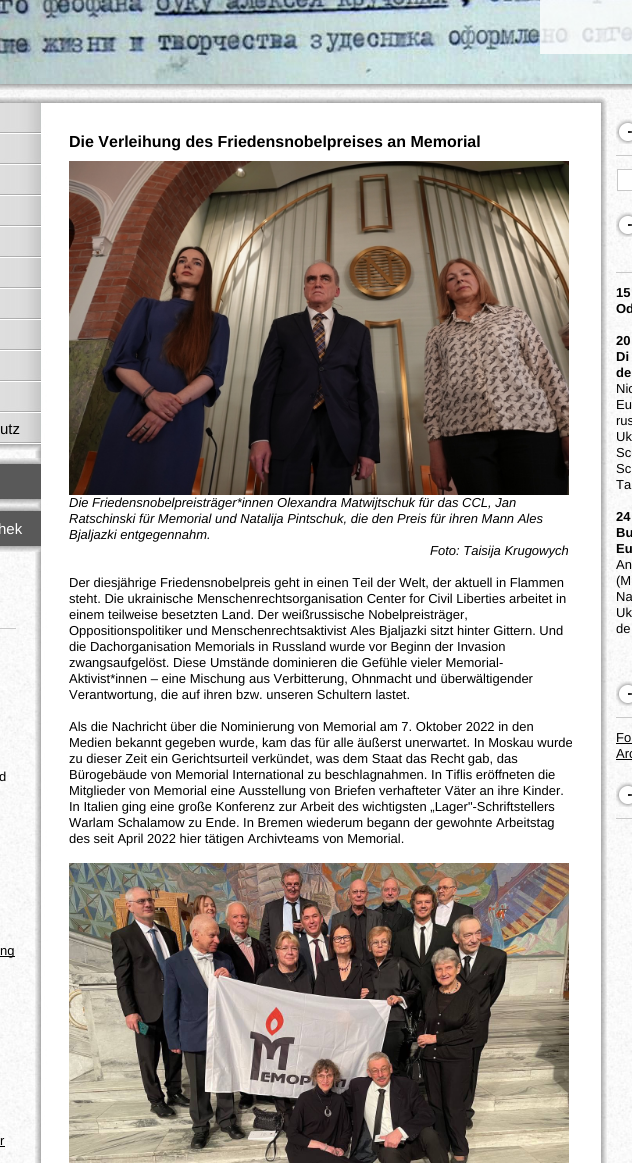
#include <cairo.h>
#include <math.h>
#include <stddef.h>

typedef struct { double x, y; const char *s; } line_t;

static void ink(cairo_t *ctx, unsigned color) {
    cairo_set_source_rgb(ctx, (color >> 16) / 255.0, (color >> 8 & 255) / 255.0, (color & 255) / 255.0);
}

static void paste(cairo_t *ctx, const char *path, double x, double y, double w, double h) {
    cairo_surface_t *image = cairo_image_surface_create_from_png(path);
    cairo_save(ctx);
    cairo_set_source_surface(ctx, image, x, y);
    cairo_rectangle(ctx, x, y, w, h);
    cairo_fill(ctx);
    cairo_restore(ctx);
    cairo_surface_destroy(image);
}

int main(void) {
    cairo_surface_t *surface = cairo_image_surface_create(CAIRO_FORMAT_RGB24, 632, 1163);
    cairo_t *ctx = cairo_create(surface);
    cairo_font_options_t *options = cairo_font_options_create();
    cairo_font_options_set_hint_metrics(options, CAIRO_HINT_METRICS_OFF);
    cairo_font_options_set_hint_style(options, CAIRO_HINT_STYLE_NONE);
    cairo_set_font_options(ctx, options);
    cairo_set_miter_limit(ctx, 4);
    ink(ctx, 0xFFFFFF);
    cairo_paint(ctx);
    paste(ctx, "media/1.png", 0, 84, 632, 19);
    paste(ctx, "media/2.png", 0, 0, 632, 84);
    cairo_set_source_rgba(ctx, 1, 1, 1, 0.8);
    cairo_rectangle(ctx, 540, 0, 92, 54);
    cairo_fill(ctx);
    paste(ctx, "media/3.png", 0, 103, 632, 1060);
    paste(ctx, "media/4.png", 0, 444, 41, 7);
    paste(ctx, "media/5.png", 0, 103, 41, 31);
    paste(ctx, "media/5.png", 0, 134, 41, 31);
    paste(ctx, "media/5.png", 0, 165, 41, 31);
    paste(ctx, "media/5.png", 0, 196, 41, 31);
    paste(ctx, "media/5.png", 0, 227, 41, 31);
    paste(ctx, "media/5.png", 0, 258, 41, 31);
    paste(ctx, "media/5.png", 0, 289, 41, 31);
    paste(ctx, "media/5.png", 0, 320, 41, 31);
    paste(ctx, "media/5.png", 0, 351, 41, 31);
    paste(ctx, "media/5.png", 0, 382, 41, 31);
    paste(ctx, "media/5.png", 0, 413, 41, 31);
    cairo_select_font_face(ctx, "Liberation Sans", CAIRO_FONT_SLANT_NORMAL, CAIRO_FONT_WEIGHT_NORMAL);
    cairo_set_font_size(ctx, 15);
    ink(ctx, 0x000000);
    cairo_move_to(ctx, 0, 434);
    cairo_show_text(ctx, "utz");
    paste(ctx, "media/6.png", 0, 458, 41, 47);
    paste(ctx, "media/6.png", 0, 505, 41, 47);
    ink(ctx, 0xFFFFFF);
    cairo_move_to(ctx, -2, 534);
    cairo_show_text(ctx, "hek");
    ink(ctx, 0xC9C9C9);
    cairo_rectangle(ctx, 0, 628, 16, 1);
    cairo_fill(ctx);
    cairo_set_font_size(ctx, 13);
    ink(ctx, 0x000000);
    cairo_move_to(ctx, -1, 781);
    cairo_show_text(ctx, "d");
    cairo_rectangle(ctx, 0, 956, 15, 1);
    cairo_fill(ctx);
    cairo_move_to(ctx, 0, 955);
    cairo_show_text(ctx, "ng");
    cairo_move_to(ctx, 0, 1145);
    cairo_show_text(ctx, "r");
    cairo_rectangle(ctx, 0, 1146, 5, 1);
    cairo_fill(ctx);
    ink(ctx, 0xFFFFFF);
    cairo_rectangle(ctx, 600, 150, 1, 873);
    cairo_fill(ctx);
    cairo_select_font_face(ctx, "Liberation Sans", CAIRO_FONT_SLANT_NORMAL, CAIRO_FONT_WEIGHT_BOLD);
    cairo_set_font_size(ctx, 16);
    ink(ctx, 0x000000);
    cairo_move_to(ctx, 69, 147);
    cairo_show_text(ctx, "Die Verleihung des Friedensnobelpreises an Memorial");
    paste(ctx, "media/7.png", 69, 161, 500, 334);
    cairo_select_font_face(ctx, "Liberation Sans", CAIRO_FONT_SLANT_ITALIC, CAIRO_FONT_WEIGHT_NORMAL);
    cairo_set_font_size(ctx, 13);
    {
        static const line_t items[] = {
            {69, 507, "Die Friedensnobelpreisträger*innen Olexandra Matwijtschuk für das CCL, Jan"},
            {69, 523, "Ratschinski für Memorial und Natalija Pintschuk, die den Preis für ihren Mann Ales"},
            {69, 539, "Bjaljazki entgegennahm."},
            {430, 555, "Foto: Taisija Krugowych"},
        };
        for (size_t i = 0; i < sizeof items / sizeof *items; i++) {
            cairo_move_to(ctx, items[i].x, items[i].y);
            cairo_show_text(ctx, items[i].s);
        }
    }
    cairo_select_font_face(ctx, "Liberation Sans", CAIRO_FONT_SLANT_NORMAL, CAIRO_FONT_WEIGHT_NORMAL);
    {
        static const line_t items[] = {
            {69, 587, "Der diesjährige Friedensnobelpreis geht in einen Teil der Welt, der aktuell in Flammen"},
            {69, 603, "steht. Die ukrainische Menschenrechtsorganisation Center for Civil Liberties arbeitet in"},
            {69, 619, "einem teilweise besetzten Land. Der weißrussische Nobelpreisträger,"},
            {69, 635, "Oppositionspolitiker und Menschenrechtsaktivist Ales Bjaljazki sitzt hinter Gittern. Und"},
            {69, 651, "die Dachorganisation Memorials in Russland wurde vor Beginn der Invasion"},
            {69, 667, "zwangsaufgelöst. Diese Umstände dominieren die Gefühle vieler Memorial-"},
            {69, 683, "Aktivist*innen – eine Mischung aus Verbitterung, Ohnmacht und überwältigender"},
            {69, 699, "Verantwortung, die auf ihren bzw. unseren Schultern lastet."},
            {69, 731, "Als die Nachricht über die Nominierung von Memorial am 7. Oktober 2022 in den"},
            {69, 747, "Medien bekannt gegeben wurde, kam das für alle äußerst unerwartet. In Moskau wurde"},
            {69, 763, "zu dieser Zeit ein Gerichtsurteil verkündet, was dem Staat das Recht gab, das"},
            {69, 779, "Bürogebäude von Memorial International zu beschlagnahmen. In Tiflis eröffneten die"},
            {69, 795, "Mitglieder von Memorial eine Ausstellung von Briefen verhafteter Väter an ihre Kinder."},
            {69, 811, "In Italien ging eine große Konferenz zur Arbeit des wichtigsten „Lager\"-Schriftstellers"},
            {69, 827, "Warlam Schalamow zu Ende. In Bremen wiederum begann der gewohnte Arbeitstag"},
            {69, 843, "des seit April 2022 hier tätigen Archivteams von Memorial."},
        };
        for (size_t i = 0; i < sizeof items / sizeof *items; i++) {
            cairo_move_to(ctx, items[i].x, items[i].y);
            cairo_show_text(ctx, items[i].s);
        }
    }
    paste(ctx, "media/8.png", 69, 863, 500, 300);
    ink(ctx, 0xC9C9C9);
    cairo_rectangle(ctx, 616, 155, 16, 1);
    cairo_fill(ctx);
    paste(ctx, "media/9.png", 616, 119, 16, 25);
    ink(ctx, 0xFFFFFF);
    cairo_rectangle(ctx, 617.5, 169.5, 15, 21);
    cairo_fill_preserve(ctx);
    ink(ctx, 0xC9C9C9);
    cairo_set_line_width(ctx, 1);
    cairo_stroke(ctx);
    cairo_rectangle(ctx, 616, 272, 16, 1);
    cairo_fill(ctx);
    paste(ctx, "media/9.png", 616, 212, 16, 25);
    cairo_select_font_face(ctx, "Liberation Sans", CAIRO_FONT_SLANT_NORMAL, CAIRO_FONT_WEIGHT_BOLD);
    ink(ctx, 0x000000);
    {
        static const line_t items[] = {
            {616, 297, "15"},
            {616, 313, "Od"},
            {616, 345, "20"},
            {616, 361, "Di"},
            {616, 377, "de"},
        };
        for (size_t i = 0; i < sizeof items / sizeof *items; i++) {
            cairo_move_to(ctx, items[i].x, items[i].y);
            cairo_show_text(ctx, items[i].s);
        }
    }
    cairo_select_font_face(ctx, "Liberation Sans", CAIRO_FONT_SLANT_NORMAL, CAIRO_FONT_WEIGHT_NORMAL);
    {
        static const line_t items[] = {
            {616, 393, "Nic"},
            {616, 409, "Eu"},
            {616, 425, "rus"},
            {616, 441, "Uk"},
            {616, 457, "Sc"},
            {616, 473, "Sc"},
            {616, 489, "Ta"},
        };
        for (size_t i = 0; i < sizeof items / sizeof *items; i++) {
            cairo_move_to(ctx, items[i].x, items[i].y);
            cairo_show_text(ctx, items[i].s);
        }
    }
    cairo_select_font_face(ctx, "Liberation Sans", CAIRO_FONT_SLANT_NORMAL, CAIRO_FONT_WEIGHT_BOLD);
    {
        static const line_t items[] = {
            {616, 521, "24"},
            {616, 537, "Bu"},
            {616, 553, "Eu"},
        };
        for (size_t i = 0; i < sizeof items / sizeof *items; i++) {
            cairo_move_to(ctx, items[i].x, items[i].y);
            cairo_show_text(ctx, items[i].s);
        }
    }
    cairo_select_font_face(ctx, "Liberation Sans", CAIRO_FONT_SLANT_NORMAL, CAIRO_FONT_WEIGHT_NORMAL);
    {
        static const line_t items[] = {
            {616, 569, "An"},
            {616, 585, "(M"},
            {616, 601, "Na"},
            {616, 617, "Uk"},
            {616, 633, "de"},
        };
        for (size_t i = 0; i < sizeof items / sizeof *items; i++) {
            cairo_move_to(ctx, items[i].x, items[i].y);
            cairo_show_text(ctx, items[i].s);
        }
    }
    ink(ctx, 0xC9C9C9);
    cairo_rectangle(ctx, 616, 717, 16, 1);
    cairo_fill(ctx);
    paste(ctx, "media/9.png", 616, 681, 16, 25);
    ink(ctx, 0x000000);
    cairo_move_to(ctx, 616, 742);
    cairo_show_text(ctx, "Fo");
    cairo_rectangle(ctx, 616, 743, 16, 1);
    cairo_fill(ctx);
    cairo_move_to(ctx, 616, 758);
    cairo_show_text(ctx, "Arc");
    cairo_rectangle(ctx, 616, 759, 16, 1);
    cairo_fill(ctx);
    ink(ctx, 0xC9C9C9);
    cairo_rectangle(ctx, 616, 818, 16, 1);
    cairo_fill(ctx);
    paste(ctx, "media/9.png", 616, 782, 16, 25);
    cairo_surface_write_to_png(surface, "image.png");
    cairo_font_options_destroy(options);
    cairo_destroy(ctx);
    cairo_surface_destroy(surface);
    return 0;
}
